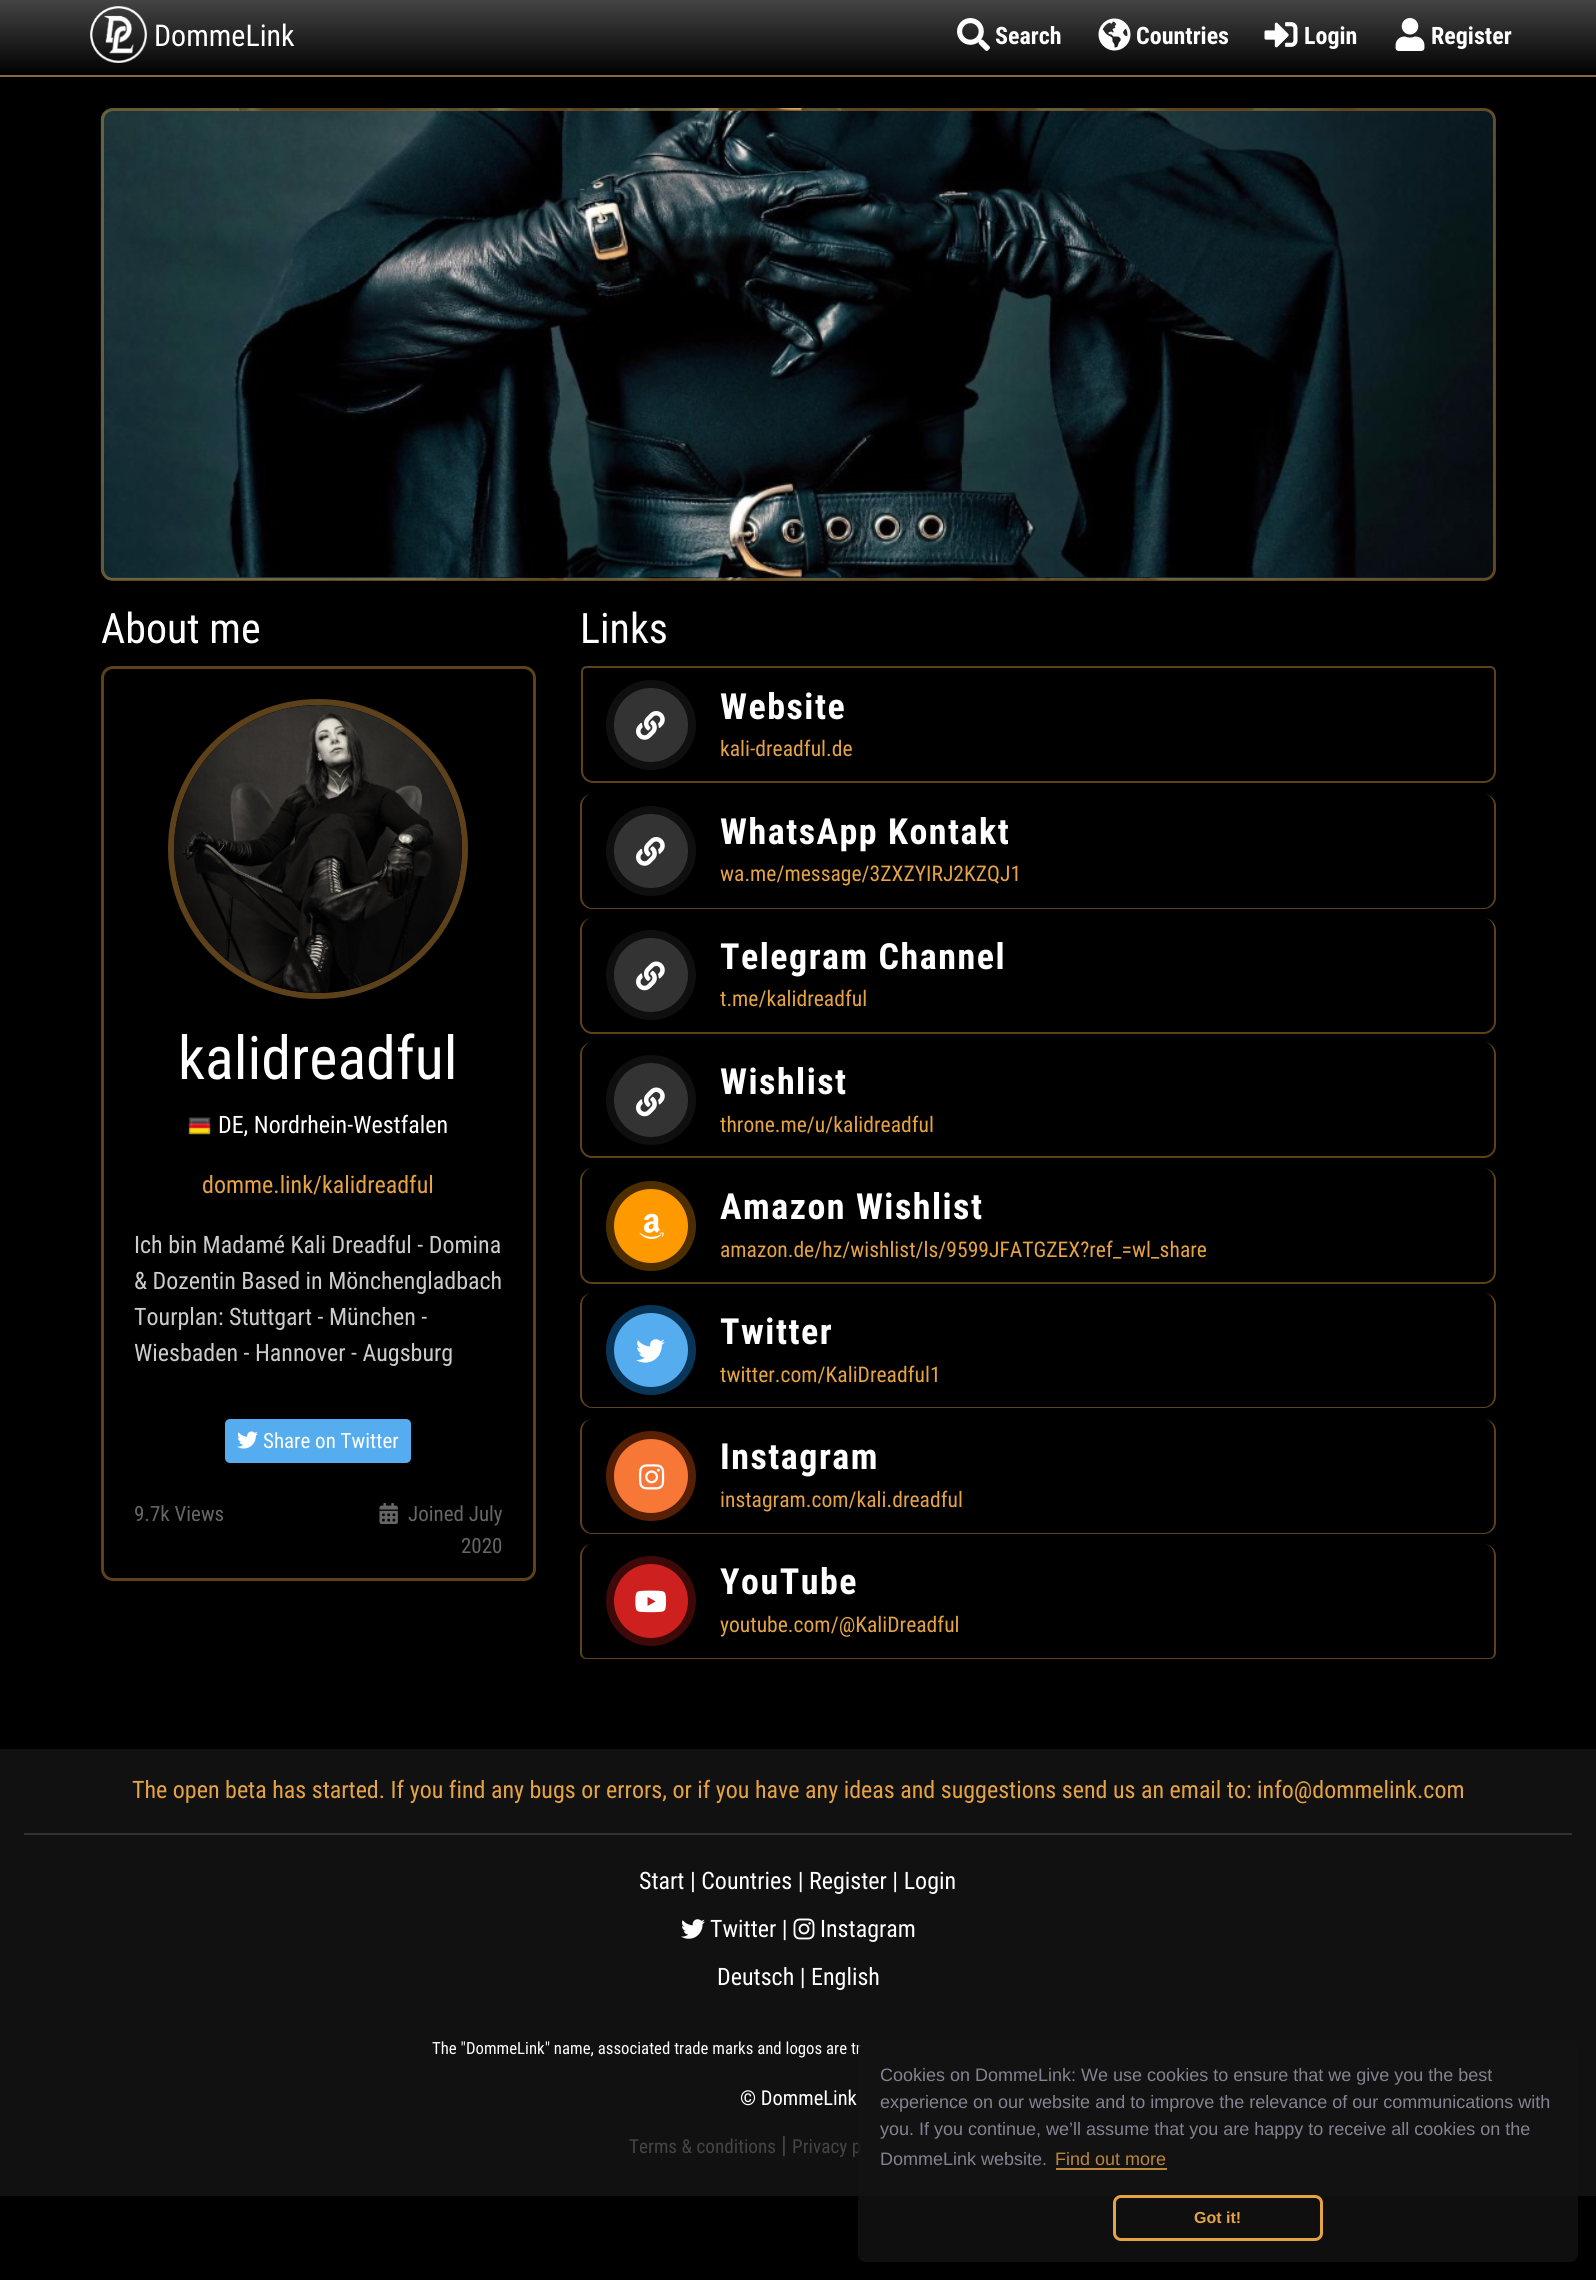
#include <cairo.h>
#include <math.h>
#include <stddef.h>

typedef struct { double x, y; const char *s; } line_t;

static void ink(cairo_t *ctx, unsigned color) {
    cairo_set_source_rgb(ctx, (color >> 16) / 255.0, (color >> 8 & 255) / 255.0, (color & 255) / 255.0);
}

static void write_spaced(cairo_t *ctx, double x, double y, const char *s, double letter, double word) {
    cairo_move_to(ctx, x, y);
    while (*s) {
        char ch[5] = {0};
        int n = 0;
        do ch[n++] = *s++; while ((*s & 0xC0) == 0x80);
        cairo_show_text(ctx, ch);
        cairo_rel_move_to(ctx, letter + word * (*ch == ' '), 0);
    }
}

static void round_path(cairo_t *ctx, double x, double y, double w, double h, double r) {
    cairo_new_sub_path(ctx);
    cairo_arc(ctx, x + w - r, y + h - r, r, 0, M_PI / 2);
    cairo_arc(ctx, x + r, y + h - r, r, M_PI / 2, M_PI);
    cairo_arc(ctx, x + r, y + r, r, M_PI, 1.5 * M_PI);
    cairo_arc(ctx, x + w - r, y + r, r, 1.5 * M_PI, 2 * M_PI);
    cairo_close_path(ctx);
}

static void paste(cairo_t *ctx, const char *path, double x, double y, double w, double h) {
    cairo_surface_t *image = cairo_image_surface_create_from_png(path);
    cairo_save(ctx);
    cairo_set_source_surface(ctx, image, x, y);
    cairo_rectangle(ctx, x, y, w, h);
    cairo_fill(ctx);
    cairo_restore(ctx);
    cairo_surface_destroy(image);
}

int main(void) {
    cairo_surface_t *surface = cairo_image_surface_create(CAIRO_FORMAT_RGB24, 1596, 2280);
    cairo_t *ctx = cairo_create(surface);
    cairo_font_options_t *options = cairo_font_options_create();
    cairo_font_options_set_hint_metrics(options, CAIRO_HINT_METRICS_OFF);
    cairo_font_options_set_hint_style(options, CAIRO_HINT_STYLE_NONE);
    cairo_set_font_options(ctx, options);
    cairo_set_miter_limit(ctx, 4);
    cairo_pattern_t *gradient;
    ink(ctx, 0x000000);
    cairo_paint(ctx);
    gradient = cairo_pattern_create_linear(798, 0, 798, 75);
    cairo_pattern_add_color_stop_rgba(gradient, 0, 0.267, 0.267, 0.267, 1);
    cairo_pattern_add_color_stop_rgba(gradient, 1, 0, 0, 0, 1);
    cairo_set_source(ctx, gradient);
    cairo_pattern_destroy(gradient);
    cairo_rectangle(ctx, 0, 0, 1596, 72);
    cairo_fill(ctx);
    ink(ctx, 0x856A43);
    cairo_rectangle(ctx, 0, 75, 1596, 2);
    cairo_fill(ctx);
    paste(ctx, "media/1.png", 90, 6, 57, 57);
    cairo_select_font_face(ctx, "Roboto Condensed", CAIRO_FONT_SLANT_NORMAL, CAIRO_FONT_WEIGHT_NORMAL);
    cairo_set_font_size(ctx, 30);
    ink(ctx, 0xFFFFFF);
    cairo_move_to(ctx, 154, 46);
    cairo_show_text(ctx, "DommeLink");
    paste(ctx, "media/2.png", 957, 18, 33, 33);
    cairo_select_font_face(ctx, "Roboto Condensed", CAIRO_FONT_SLANT_NORMAL, CAIRO_FONT_WEIGHT_BOLD);
    cairo_set_font_size(ctx, 24);
    cairo_move_to(ctx, 995, 44);
    cairo_show_text(ctx, "Search");
    paste(ctx, "media/3.png", 1098, 18, 33, 33);
    cairo_move_to(ctx, 1136, 44);
    cairo_show_text(ctx, "Countries");
    paste(ctx, "media/4.png", 1264, 22, 34, 26);
    cairo_move_to(ctx, 1304, 44);
    cairo_show_text(ctx, "Login");
    paste(ctx, "media/5.png", 1395, 18, 30, 33);
    cairo_move_to(ctx, 1431, 44);
    cairo_show_text(ctx, "Register");
    paste(ctx, "media/6.png", 100, 108, 1396, 473);
    round_path(ctx, 102.5, 109.5, 1392, 470, 10.5);
    cairo_set_source_rgba(ctx, 0.902, 0.639, 0.263, 0.4);
    cairo_set_line_width(ctx, 3);
    cairo_stroke(ctx);
    cairo_select_font_face(ctx, "Roboto Condensed", CAIRO_FONT_SLANT_NORMAL, CAIRO_FONT_WEIGHT_NORMAL);
    cairo_set_font_size(ctx, 42);
    ink(ctx, 0xFFFFFF);
    cairo_move_to(ctx, 101, 643);
    cairo_show_text(ctx, "About me");
    round_path(ctx, 102.5, 667.5, 432, 912, 10.5);
    ink(ctx, 0x5C411B);
    cairo_stroke(ctx);
    cairo_arc(ctx, 318, 849, 147, 0, 2 * M_PI);
    cairo_set_line_width(ctx, 6);
    cairo_stroke(ctx);
    paste(ctx, "media/7.png", 174, 705, 288, 288);
    cairo_set_font_size(ctx, 60);
    ink(ctx, 0xFFFFFF);
    cairo_move_to(ctx, 178, 1079);
    cairo_show_text(ctx, "kalidreadful");
    paste(ctx, "media/8.png", 188, 1117, 23, 18);
    cairo_set_font_size(ctx, 24);
    cairo_move_to(ctx, 218, 1133);
    cairo_show_text(ctx, "DE, Nordrhein-Westfalen");
    ink(ctx, 0xE6A343);
    cairo_move_to(ctx, 202, 1193);
    cairo_show_text(ctx, "domme.link/kalidreadful");
    ink(ctx, 0xCCCCCC);
    {
        static const line_t items[] = {
            {134, 1253, "Ich bin Madamé Kali Dreadful - Domina"},
            {134, 1289, "& Dozentin Based in Mönchengladbach"},
            {134, 1325, "Tourplan: Stuttgart - München -"},
            {134, 1361, "Wiesbaden - Hannover - Augsburg"},
        };
        for (size_t i = 0; i < sizeof items / sizeof *items; i++) {
            cairo_move_to(ctx, items[i].x, items[i].y);
            cairo_show_text(ctx, items[i].s);
        }
    }
    ink(ctx, 0x55ACEE);
    round_path(ctx, 225, 1419, 186, 44, 5);
    cairo_fill(ctx);
    paste(ctx, "media/9.png", 237, 1431, 21, 18);
    cairo_set_font_size(ctx, 21);
    ink(ctx, 0xFFFFFF);
    cairo_move_to(ctx, 263, 1448);
    cairo_show_text(ctx, "Share on Twitter");
    ink(ctx, 0x666666);
    cairo_move_to(ctx, 134, 1521);
    cairo_show_text(ctx, "9.7k Views");
    paste(ctx, "media/10.png", 379, 1503, 19, 21);
    cairo_move_to(ctx, 408, 1521);
    cairo_show_text(ctx, "Joined July");
    cairo_move_to(ctx, 461, 1553);
    cairo_show_text(ctx, "2020");
    cairo_set_font_size(ctx, 42);
    ink(ctx, 0xFFFFFF);
    cairo_move_to(ctx, 580, 643);
    cairo_show_text(ctx, "Links");
    cairo_new_path(ctx);
    cairo_move_to(ctx, 587, 667);
    cairo_line_to(ctx, 1490, 667);
    cairo_curve_to(ctx, 1493, 667, 1495, 669, 1495, 672);
    cairo_line_to(ctx, 1495, 771);
    cairo_curve_to(ctx, 1495, 777, 1490, 782, 1484, 782);
    cairo_line_to(ctx, 593, 782);
    cairo_curve_to(ctx, 587, 782, 582, 777, 582, 771);
    cairo_line_to(ctx, 582, 672);
    cairo_curve_to(ctx, 582, 669, 584, 667, 587, 667);
    cairo_close_path(ctx);
    ink(ctx, 0x5C411B);
    cairo_set_line_width(ctx, 2);
    cairo_stroke(ctx);
    ink(ctx, 0x333333);
    cairo_arc(ctx, 651, 725, 41, 0, 2 * M_PI);
    cairo_fill_preserve(ctx);
    ink(ctx, 0x0F0F0F);
    cairo_set_line_width(ctx, 8);
    cairo_stroke(ctx);
    paste(ctx, "media/11.png", 636, 711, 29, 29);
    cairo_select_font_face(ctx, "Roboto Condensed", CAIRO_FONT_SLANT_NORMAL, CAIRO_FONT_WEIGHT_BOLD);
    cairo_set_font_size(ctx, 36);
    ink(ctx, 0xFFFFFF);
    write_spaced(ctx, 720, 719, "Website", 1.5, 0);
    cairo_select_font_face(ctx, "Roboto Condensed", CAIRO_FONT_SLANT_NORMAL, CAIRO_FONT_WEIGHT_NORMAL);
    cairo_set_font_size(ctx, 21.6);
    ink(ctx, 0xE6A343);
    cairo_move_to(ctx, 720, 756);
    cairo_show_text(ctx, "kali-dreadful.de");
    ink(ctx, 0x5C411B);
    cairo_set_fill_rule(ctx, CAIRO_FILL_RULE_EVEN_ODD);
    cairo_new_path(ctx);
    cairo_move_to(ctx, 592, 794);
    cairo_line_to(ctx, 1484, 794);
    cairo_curve_to(ctx, 1490, 794, 1496, 799, 1496, 806);
    cairo_line_to(ctx, 1496, 897);
    cairo_curve_to(ctx, 1496, 904, 1490, 909, 1484, 909);
    cairo_line_to(ctx, 592, 909);
    cairo_curve_to(ctx, 586, 909, 580, 904, 580, 897);
    cairo_line_to(ctx, 580, 806);
    cairo_curve_to(ctx, 580, 799, 586, 794, 592, 794);
    cairo_close_path(ctx);
    cairo_move_to(ctx, 592, 794);
    cairo_line_to(ctx, 1484, 794);
    cairo_curve_to(ctx, 1489, 794, 1494, 799, 1494, 806);
    cairo_line_to(ctx, 1494, 897);
    cairo_curve_to(ctx, 1494, 903, 1489, 908, 1484, 908);
    cairo_line_to(ctx, 592, 908);
    cairo_curve_to(ctx, 587, 908, 582, 903, 582, 897);
    cairo_line_to(ctx, 582, 806);
    cairo_curve_to(ctx, 582, 799, 587, 794, 592, 794);
    cairo_close_path(ctx);
    cairo_fill(ctx);
    ink(ctx, 0x333333);
    cairo_arc(ctx, 651, 851, 41, 0, 2 * M_PI);
    cairo_fill_preserve(ctx);
    ink(ctx, 0x0F0F0F);
    cairo_stroke(ctx);
    paste(ctx, "media/11.png", 636, 837, 29, 29);
    cairo_select_font_face(ctx, "Roboto Condensed", CAIRO_FONT_SLANT_NORMAL, CAIRO_FONT_WEIGHT_BOLD);
    cairo_set_font_size(ctx, 36);
    ink(ctx, 0xFFFFFF);
    write_spaced(ctx, 720, 844, "WhatsApp Kontakt", 1.5, 0);
    cairo_select_font_face(ctx, "Roboto Condensed", CAIRO_FONT_SLANT_NORMAL, CAIRO_FONT_WEIGHT_NORMAL);
    cairo_set_font_size(ctx, 21.6);
    ink(ctx, 0xE6A343);
    cairo_move_to(ctx, 720, 881);
    cairo_show_text(ctx, "wa.me/message/3ZXZYIRJ2KZQJ1");
    ink(ctx, 0x5C411B);
    cairo_new_path(ctx);
    cairo_move_to(ctx, 592, 918);
    cairo_line_to(ctx, 1484, 918);
    cairo_curve_to(ctx, 1490, 918, 1496, 923, 1496, 930);
    cairo_line_to(ctx, 1496, 1022);
    cairo_curve_to(ctx, 1496, 1028, 1490, 1034, 1484, 1034);
    cairo_line_to(ctx, 592, 1034);
    cairo_curve_to(ctx, 586, 1034, 580, 1028, 580, 1022);
    cairo_line_to(ctx, 580, 930);
    cairo_curve_to(ctx, 580, 923, 586, 918, 592, 918);
    cairo_close_path(ctx);
    cairo_move_to(ctx, 592, 918);
    cairo_line_to(ctx, 1484, 918);
    cairo_curve_to(ctx, 1489, 918, 1494, 923, 1494, 930);
    cairo_line_to(ctx, 1494, 1022);
    cairo_curve_to(ctx, 1494, 1027, 1489, 1032, 1484, 1032);
    cairo_line_to(ctx, 592, 1032);
    cairo_curve_to(ctx, 587, 1032, 582, 1027, 582, 1022);
    cairo_line_to(ctx, 582, 930);
    cairo_curve_to(ctx, 582, 923, 587, 918, 592, 918);
    cairo_close_path(ctx);
    cairo_fill(ctx);
    ink(ctx, 0x333333);
    cairo_arc(ctx, 651, 975, 41, 0, 2 * M_PI);
    cairo_fill_preserve(ctx);
    ink(ctx, 0x0F0F0F);
    cairo_stroke(ctx);
    paste(ctx, "media/12.png", 636, 961, 29, 30);
    cairo_select_font_face(ctx, "Roboto Condensed", CAIRO_FONT_SLANT_NORMAL, CAIRO_FONT_WEIGHT_BOLD);
    cairo_set_font_size(ctx, 36);
    ink(ctx, 0xFFFFFF);
    write_spaced(ctx, 720, 969, "Telegram Channel", 1.5, 0);
    cairo_select_font_face(ctx, "Roboto Condensed", CAIRO_FONT_SLANT_NORMAL, CAIRO_FONT_WEIGHT_NORMAL);
    cairo_set_font_size(ctx, 21.6);
    ink(ctx, 0xE6A343);
    cairo_move_to(ctx, 720, 1006);
    cairo_show_text(ctx, "t.me/kalidreadful");
    ink(ctx, 0x5C411B);
    cairo_new_path(ctx);
    cairo_move_to(ctx, 592, 1042);
    cairo_line_to(ctx, 1484, 1042);
    cairo_curve_to(ctx, 1490, 1042, 1496, 1048, 1496, 1054);
    cairo_line_to(ctx, 1496, 1146);
    cairo_curve_to(ctx, 1496, 1153, 1490, 1158, 1484, 1158);
    cairo_line_to(ctx, 592, 1158);
    cairo_curve_to(ctx, 586, 1158, 580, 1153, 580, 1146);
    cairo_line_to(ctx, 580, 1054);
    cairo_curve_to(ctx, 580, 1048, 586, 1042, 592, 1042);
    cairo_close_path(ctx);
    cairo_move_to(ctx, 592, 1042);
    cairo_line_to(ctx, 1484, 1042);
    cairo_curve_to(ctx, 1489, 1042, 1494, 1048, 1494, 1054);
    cairo_line_to(ctx, 1494, 1146);
    cairo_curve_to(ctx, 1494, 1152, 1489, 1156, 1484, 1156);
    cairo_line_to(ctx, 592, 1156);
    cairo_curve_to(ctx, 587, 1156, 582, 1152, 582, 1146);
    cairo_line_to(ctx, 582, 1054);
    cairo_curve_to(ctx, 582, 1048, 587, 1042, 592, 1042);
    cairo_close_path(ctx);
    cairo_fill(ctx);
    ink(ctx, 0x333333);
    cairo_arc(ctx, 651, 1100, 41, 0, 2 * M_PI);
    cairo_fill_preserve(ctx);
    ink(ctx, 0x0F0F0F);
    cairo_stroke(ctx);
    paste(ctx, "media/12.png", 636, 1087, 29, 30);
    cairo_select_font_face(ctx, "Roboto Condensed", CAIRO_FONT_SLANT_NORMAL, CAIRO_FONT_WEIGHT_BOLD);
    cairo_set_font_size(ctx, 36);
    ink(ctx, 0xFFFFFF);
    write_spaced(ctx, 720, 1094, "Wishlist", 1.5, 0);
    cairo_select_font_face(ctx, "Roboto Condensed", CAIRO_FONT_SLANT_NORMAL, CAIRO_FONT_WEIGHT_NORMAL);
    cairo_set_font_size(ctx, 21.6);
    ink(ctx, 0xE6A343);
    cairo_move_to(ctx, 720, 1132);
    cairo_show_text(ctx, "throne.me/u/kalidreadful");
    ink(ctx, 0x5C411B);
    cairo_new_path(ctx);
    cairo_move_to(ctx, 592, 1168);
    cairo_line_to(ctx, 1484, 1168);
    cairo_curve_to(ctx, 1490, 1168, 1496, 1174, 1496, 1180);
    cairo_line_to(ctx, 1496, 1272);
    cairo_curve_to(ctx, 1496, 1279, 1490, 1284, 1484, 1284);
    cairo_line_to(ctx, 592, 1284);
    cairo_curve_to(ctx, 586, 1284, 580, 1279, 580, 1272);
    cairo_line_to(ctx, 580, 1180);
    cairo_curve_to(ctx, 580, 1174, 586, 1168, 592, 1168);
    cairo_close_path(ctx);
    cairo_move_to(ctx, 592, 1168);
    cairo_line_to(ctx, 1484, 1168);
    cairo_curve_to(ctx, 1489, 1168, 1494, 1174, 1494, 1180);
    cairo_line_to(ctx, 1494, 1272);
    cairo_curve_to(ctx, 1494, 1278, 1489, 1282, 1484, 1282);
    cairo_line_to(ctx, 592, 1282);
    cairo_curve_to(ctx, 587, 1282, 582, 1278, 582, 1272);
    cairo_line_to(ctx, 582, 1180);
    cairo_curve_to(ctx, 582, 1174, 587, 1168, 592, 1168);
    cairo_close_path(ctx);
    cairo_fill(ctx);
    ink(ctx, 0xFF9900);
    cairo_arc(ctx, 651, 1226, 41, 0, 2 * M_PI);
    cairo_fill_preserve(ctx);
    ink(ctx, 0x4D2E00);
    cairo_stroke(ctx);
    paste(ctx, "media/13.png", 639, 1213, 25, 26);
    cairo_select_font_face(ctx, "Roboto Condensed", CAIRO_FONT_SLANT_NORMAL, CAIRO_FONT_WEIGHT_BOLD);
    cairo_set_font_size(ctx, 36);
    ink(ctx, 0xFFFFFF);
    write_spaced(ctx, 720, 1219, "Amazon Wishlist", 1.5, 0);
    cairo_select_font_face(ctx, "Roboto Condensed", CAIRO_FONT_SLANT_NORMAL, CAIRO_FONT_WEIGHT_NORMAL);
    cairo_set_font_size(ctx, 21.6);
    ink(ctx, 0xE6A343);
    cairo_move_to(ctx, 720, 1257);
    cairo_show_text(ctx, "amazon.de/hz/wishlist/ls/9599JFATGZEX?ref_=wl_share");
    ink(ctx, 0x5C411B);
    cairo_new_path(ctx);
    cairo_move_to(ctx, 592, 1293);
    cairo_line_to(ctx, 1484, 1293);
    cairo_curve_to(ctx, 1490, 1293, 1496, 1298, 1496, 1305);
    cairo_line_to(ctx, 1496, 1396);
    cairo_curve_to(ctx, 1496, 1403, 1490, 1408, 1484, 1408);
    cairo_line_to(ctx, 592, 1408);
    cairo_curve_to(ctx, 586, 1408, 580, 1403, 580, 1396);
    cairo_line_to(ctx, 580, 1305);
    cairo_curve_to(ctx, 580, 1298, 586, 1293, 592, 1293);
    cairo_close_path(ctx);
    cairo_move_to(ctx, 592, 1293);
    cairo_line_to(ctx, 1484, 1293);
    cairo_curve_to(ctx, 1489, 1293, 1494, 1298, 1494, 1305);
    cairo_line_to(ctx, 1494, 1396);
    cairo_curve_to(ctx, 1494, 1402, 1489, 1407, 1484, 1407);
    cairo_line_to(ctx, 592, 1407);
    cairo_curve_to(ctx, 587, 1407, 582, 1402, 582, 1396);
    cairo_line_to(ctx, 582, 1305);
    cairo_curve_to(ctx, 582, 1298, 587, 1293, 592, 1293);
    cairo_close_path(ctx);
    cairo_fill(ctx);
    ink(ctx, 0x55ACEE);
    cairo_arc(ctx, 651, 1350, 41, 0, 2 * M_PI);
    cairo_fill_preserve(ctx);
    ink(ctx, 0x093658);
    cairo_stroke(ctx);
    paste(ctx, "media/14.png", 636, 1339, 29, 24);
    cairo_select_font_face(ctx, "Roboto Condensed", CAIRO_FONT_SLANT_NORMAL, CAIRO_FONT_WEIGHT_BOLD);
    cairo_set_font_size(ctx, 36);
    ink(ctx, 0xFFFFFF);
    write_spaced(ctx, 720, 1344, "Twitter", 1.5, 0);
    cairo_select_font_face(ctx, "Roboto Condensed", CAIRO_FONT_SLANT_NORMAL, CAIRO_FONT_WEIGHT_NORMAL);
    cairo_set_font_size(ctx, 21.6);
    ink(ctx, 0xE6A343);
    cairo_move_to(ctx, 720, 1382);
    cairo_show_text(ctx, "twitter.com/KaliDreadful1");
    ink(ctx, 0x5C411B);
    cairo_new_path(ctx);
    cairo_move_to(ctx, 592, 1419);
    cairo_line_to(ctx, 1484, 1419);
    cairo_curve_to(ctx, 1490, 1419, 1496, 1424, 1496, 1431);
    cairo_line_to(ctx, 1496, 1522);
    cairo_curve_to(ctx, 1496, 1529, 1490, 1534, 1484, 1534);
    cairo_line_to(ctx, 592, 1534);
    cairo_curve_to(ctx, 586, 1534, 580, 1529, 580, 1522);
    cairo_line_to(ctx, 580, 1431);
    cairo_curve_to(ctx, 580, 1424, 586, 1419, 592, 1419);
    cairo_close_path(ctx);
    cairo_move_to(ctx, 592, 1419);
    cairo_line_to(ctx, 1484, 1419);
    cairo_curve_to(ctx, 1489, 1419, 1494, 1424, 1494, 1431);
    cairo_line_to(ctx, 1494, 1522);
    cairo_curve_to(ctx, 1494, 1528, 1489, 1533, 1484, 1533);
    cairo_line_to(ctx, 592, 1533);
    cairo_curve_to(ctx, 587, 1533, 582, 1528, 582, 1522);
    cairo_line_to(ctx, 582, 1431);
    cairo_curve_to(ctx, 582, 1424, 587, 1419, 592, 1419);
    cairo_close_path(ctx);
    cairo_fill(ctx);
    ink(ctx, 0xF77737);
    cairo_arc(ctx, 651, 1476, 41, 0, 2 * M_PI);
    cairo_fill_preserve(ctx);
    ink(ctx, 0x571F03);
    cairo_stroke(ctx);
    paste(ctx, "media/15.png", 639, 1464, 26, 26);
    cairo_select_font_face(ctx, "Roboto Condensed", CAIRO_FONT_SLANT_NORMAL, CAIRO_FONT_WEIGHT_BOLD);
    cairo_set_font_size(ctx, 36);
    ink(ctx, 0xFFFFFF);
    write_spaced(ctx, 720, 1469, "Instagram", 1.5, 0);
    cairo_select_font_face(ctx, "Roboto Condensed", CAIRO_FONT_SLANT_NORMAL, CAIRO_FONT_WEIGHT_NORMAL);
    cairo_set_font_size(ctx, 21.6);
    ink(ctx, 0xE6A343);
    cairo_move_to(ctx, 720, 1507);
    cairo_show_text(ctx, "instagram.com/kali.dreadful");
    ink(ctx, 0x5C411B);
    cairo_new_path(ctx);
    cairo_move_to(ctx, 592, 1544);
    cairo_line_to(ctx, 1484, 1544);
    cairo_curve_to(ctx, 1490, 1544, 1496, 1549, 1496, 1556);
    cairo_line_to(ctx, 1496, 1653);
    cairo_curve_to(ctx, 1496, 1656, 1493, 1659, 1490, 1659);
    cairo_line_to(ctx, 586, 1659);
    cairo_curve_to(ctx, 583, 1659, 580, 1656, 580, 1653);
    cairo_line_to(ctx, 580, 1556);
    cairo_curve_to(ctx, 580, 1549, 586, 1544, 592, 1544);
    cairo_close_path(ctx);
    cairo_move_to(ctx, 592, 1544);
    cairo_line_to(ctx, 1484, 1544);
    cairo_curve_to(ctx, 1489, 1544, 1494, 1549, 1494, 1556);
    cairo_line_to(ctx, 1494, 1653);
    cairo_curve_to(ctx, 1494, 1655, 1492, 1658, 1490, 1658);
    cairo_line_to(ctx, 586, 1658);
    cairo_curve_to(ctx, 584, 1658, 582, 1655, 582, 1653);
    cairo_line_to(ctx, 582, 1556);
    cairo_curve_to(ctx, 582, 1549, 587, 1544, 592, 1544);
    cairo_close_path(ctx);
    cairo_fill(ctx);
    ink(ctx, 0xCD201F);
    cairo_arc(ctx, 651, 1601, 41, 0, 2 * M_PI);
    cairo_fill_preserve(ctx);
    ink(ctx, 0x3E0A09);
    cairo_stroke(ctx);
    paste(ctx, "media/16.png", 635, 1590, 32, 23);
    cairo_select_font_face(ctx, "Roboto Condensed", CAIRO_FONT_SLANT_NORMAL, CAIRO_FONT_WEIGHT_BOLD);
    cairo_set_font_size(ctx, 36);
    ink(ctx, 0xFFFFFF);
    write_spaced(ctx, 720, 1594, "YouTube", 1.5, 0);
    cairo_select_font_face(ctx, "Roboto Condensed", CAIRO_FONT_SLANT_NORMAL, CAIRO_FONT_WEIGHT_NORMAL);
    cairo_set_font_size(ctx, 21.6);
    ink(ctx, 0xE6A343);
    cairo_move_to(ctx, 720, 1632);
    cairo_show_text(ctx, "youtube.com/@KaliDreadful");
    ink(ctx, 0x111111);
    cairo_rectangle(ctx, 0, 1749, 1596, 447);
    cairo_fill(ctx);
    ink(ctx, 0x333333);
    cairo_rectangle(ctx, 24, 1833, 1548, 2);
    cairo_fill(ctx);
    cairo_set_font_size(ctx, 24);
    ink(ctx, 0xE6A343);
    cairo_move_to(ctx, 132, 1798);
    cairo_show_text(ctx, "The open beta has started. If you find any bugs or errors, or if you have any ideas and suggestions send us an email to: info@dommelink.com");
    ink(ctx, 0xFFFFFF);
    cairo_move_to(ctx, 639, 1889);
    cairo_show_text(ctx, "Start | Countries | Register | Login");
    paste(ctx, "media/17.png", 681, 1919, 24, 20);
    cairo_move_to(ctx, 710, 1937);
    cairo_show_text(ctx, "Twitter |");
    paste(ctx, "media/18.png", 793, 1918, 22, 22);
    cairo_move_to(ctx, 820, 1937);
    cairo_show_text(ctx, "Instagram");
    cairo_move_to(ctx, 717, 1985);
    cairo_show_text(ctx, "Deutsch | English");
    cairo_set_font_size(ctx, 16.8);
    cairo_move_to(ctx, 432, 2054);
    cairo_show_text(ctx, "The \"DommeLink\" name, associated trade marks and logos are tr");
    cairo_set_font_size(ctx, 20.5);
    cairo_move_to(ctx, 740, 2105);
    cairo_show_text(ctx, "© DommeLink");
    cairo_set_font_size(ctx, 19.25);
    ink(ctx, 0x444444);
    cairo_move_to(ctx, 629, 2153);
    cairo_show_text(ctx, "Terms & conditions");
    cairo_set_font_size(ctx, 24);
    cairo_move_to(ctx, 781, 2153);
    cairo_show_text(ctx, "|");
    cairo_set_font_size(ctx, 19.25);
    cairo_move_to(ctx, 792, 2153);
    cairo_show_text(ctx, "Privacy p");
    cairo_set_source_rgba(ctx, 0.078, 0.078, 0.078, 0.8);
    round_path(ctx, 858, 2040, 720, 222, 8);
    cairo_fill(ctx);
    cairo_select_font_face(ctx, "Liberation Sans", CAIRO_FONT_SLANT_NORMAL, CAIRO_FONT_WEIGHT_NORMAL);
    cairo_set_font_size(ctx, 18);
    ink(ctx, 0x838391);
    {
        static const line_t items[] = {
            {880, 2081, "Cookies on DommeLink: We use cookies to ensure that we give you the best"},
            {880, 2108, "experience on our website and to improve the relevance of our communications with"},
            {880, 2135, "you. If you continue, we’ll assume that you are happy to receive all cookies on the"},
            {880, 2165, "DommeLink website."},
        };
        for (size_t i = 0; i < sizeof items / sizeof *items; i++) {
            cairo_move_to(ctx, items[i].x, items[i].y);
            cairo_show_text(ctx, items[i].s);
        }
    }
    ink(ctx, 0xBC8639);
    cairo_move_to(ctx, 1055, 2165);
    cairo_show_text(ctx, "Find out more");
    cairo_rectangle(ctx, 1056, 2168, 111, 2);
    cairo_fill(ctx);
    round_path(ctx, 1114.5, 2196.5, 207, 43, 6.5);
    ink(ctx, 0xE6A343);
    cairo_set_line_width(ctx, 3);
    cairo_stroke(ctx);
    cairo_select_font_face(ctx, "Liberation Sans", CAIRO_FONT_SLANT_NORMAL, CAIRO_FONT_WEIGHT_BOLD);
    cairo_set_font_size(ctx, 16);
    cairo_move_to(ctx, 1194, 2223);
    cairo_show_text(ctx, "Got it!");
    cairo_surface_write_to_png(surface, "image.png");
    cairo_font_options_destroy(options);
    cairo_destroy(ctx);
    cairo_surface_destroy(surface);
    return 0;
}
